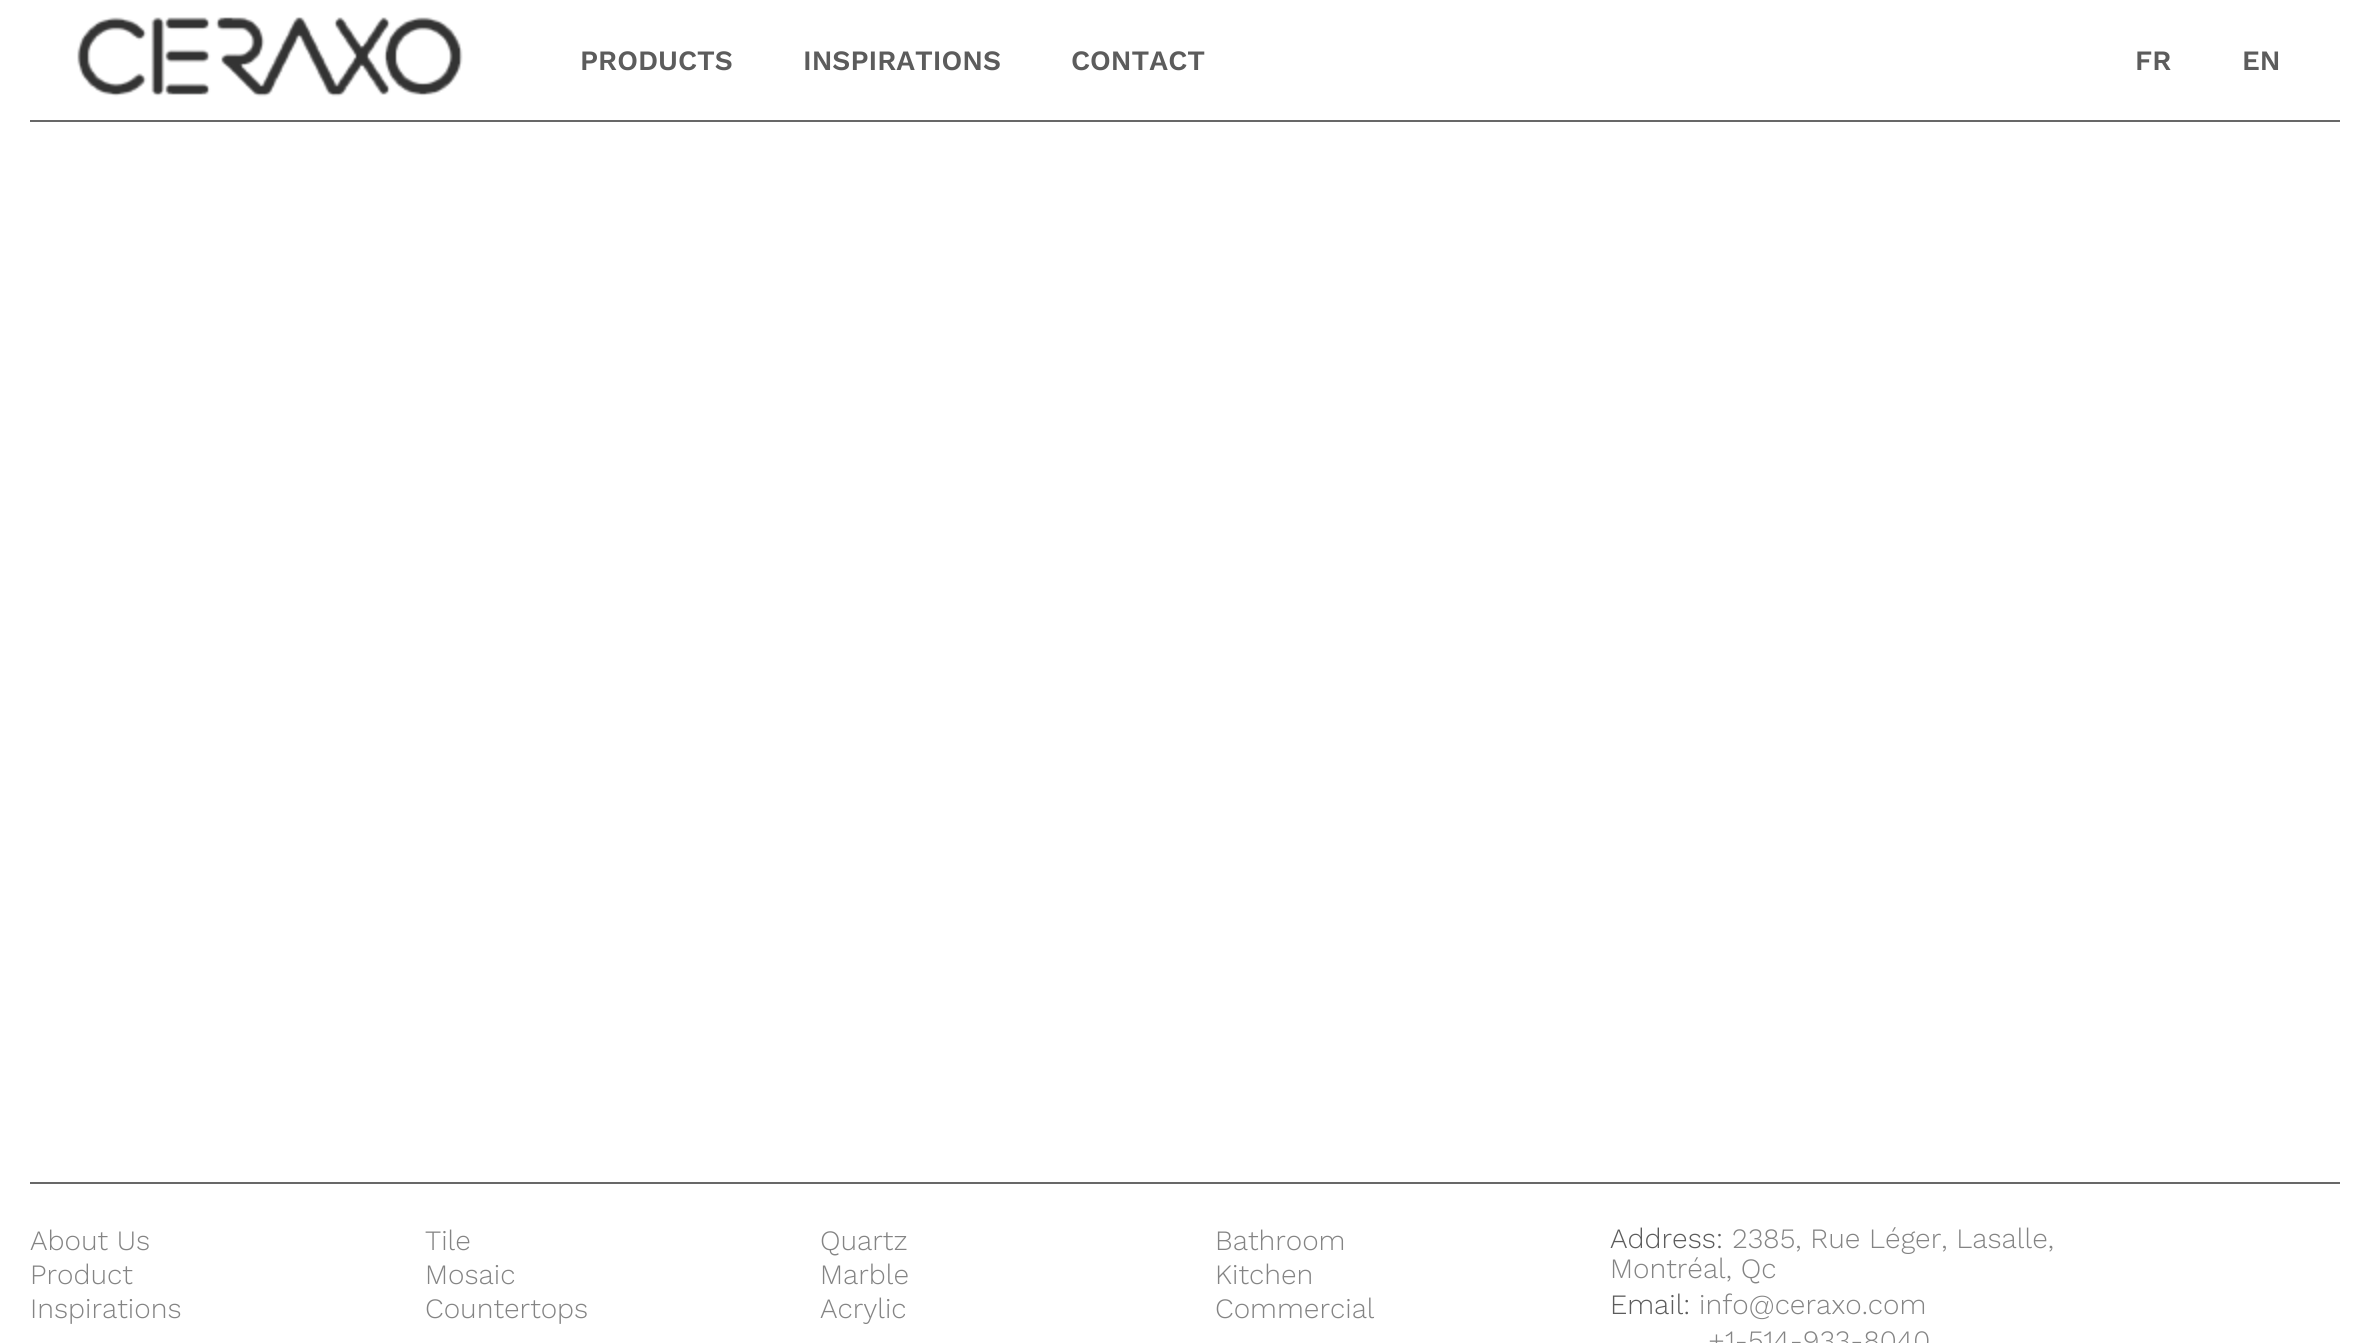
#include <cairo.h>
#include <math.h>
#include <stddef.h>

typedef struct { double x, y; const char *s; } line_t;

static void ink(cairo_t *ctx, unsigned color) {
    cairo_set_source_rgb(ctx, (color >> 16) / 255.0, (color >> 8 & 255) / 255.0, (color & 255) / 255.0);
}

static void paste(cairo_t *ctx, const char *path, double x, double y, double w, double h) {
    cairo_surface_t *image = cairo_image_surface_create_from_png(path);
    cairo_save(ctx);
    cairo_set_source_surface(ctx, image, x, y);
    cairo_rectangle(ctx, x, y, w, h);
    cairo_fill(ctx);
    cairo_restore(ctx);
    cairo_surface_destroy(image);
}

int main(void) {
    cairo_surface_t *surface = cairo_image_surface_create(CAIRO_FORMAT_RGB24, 2370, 1343);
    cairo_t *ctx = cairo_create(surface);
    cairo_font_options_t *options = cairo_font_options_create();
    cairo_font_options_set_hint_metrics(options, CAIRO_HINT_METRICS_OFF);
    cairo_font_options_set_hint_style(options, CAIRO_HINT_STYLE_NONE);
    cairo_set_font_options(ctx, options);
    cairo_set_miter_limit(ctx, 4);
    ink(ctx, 0xFFFFFF);
    cairo_paint(ctx);
    paste(ctx, "media/1.png", 77, 16, 386, 81);
    cairo_select_font_face(ctx, "Work Sans SemiBold", CAIRO_FONT_SLANT_NORMAL, CAIRO_FONT_WEIGHT_NORMAL);
    cairo_set_font_size(ctx, 28);
    ink(ctx, 0x5C5C5C);
    {
        static const line_t items[] = {
            {580, 70, "PRODUCTS"},
            {803, 70, "INSPIRATIONS"},
            {1071, 70, "CONTACT"},
            {2135, 70, "FR"},
            {2242, 70, "EN"},
        };
        for (size_t i = 0; i < sizeof items / sizeof *items; i++) {
            cairo_move_to(ctx, items[i].x, items[i].y);
            cairo_show_text(ctx, items[i].s);
        }
    }
    ink(ctx, 0x686868);
    cairo_rectangle(ctx, 30, 120, 2310, 2);
    cairo_fill(ctx);
    cairo_rectangle(ctx, 30, 1182, 2310, 2);
    cairo_fill(ctx);
    cairo_select_font_face(ctx, "Work Sans Light", CAIRO_FONT_SLANT_NORMAL, CAIRO_FONT_WEIGHT_NORMAL);
    ink(ctx, 0x848484);
    {
        static const line_t items[] = {
            {30, 1250, "About Us"},
            {30, 1284, "Product"},
            {30, 1318, "Inspirations"},
            {425, 1250, "Tile"},
            {425, 1284, "Mosaic"},
            {425, 1318, "Countertops"},
            {820, 1250, "Quartz"},
            {820, 1284, "Marble"},
            {820, 1318, "Acrylic"},
            {1215, 1250, "Bathroom"},
            {1215, 1284, "Kitchen"},
            {1215, 1318, "Commercial"},
        };
        for (size_t i = 0; i < sizeof items / sizeof *items; i++) {
            cairo_move_to(ctx, items[i].x, items[i].y);
            cairo_show_text(ctx, items[i].s);
        }
    }
    ink(ctx, 0x5C5C5C);
    cairo_move_to(ctx, 1610, 1248);
    cairo_show_text(ctx, "Address:");
    ink(ctx, 0x848484);
    cairo_move_to(ctx, 1732, 1248);
    cairo_show_text(ctx, "2385, Rue Léger, Lasalle,");
    cairo_move_to(ctx, 1610, 1278);
    cairo_show_text(ctx, "Montréal, Qc");
    ink(ctx, 0x5C5C5C);
    cairo_move_to(ctx, 1610, 1314);
    cairo_show_text(ctx, "Email:");
    ink(ctx, 0x848484);
    cairo_move_to(ctx, 1699, 1314);
    cairo_show_text(ctx, "info@ceraxo.com");
    cairo_move_to(ctx, 1708, 1350);
    cairo_show_text(ctx, "+1-514-933-8040");
    cairo_surface_write_to_png(surface, "image.png");
    cairo_font_options_destroy(options);
    cairo_destroy(ctx);
    cairo_surface_destroy(surface);
    return 0;
}
